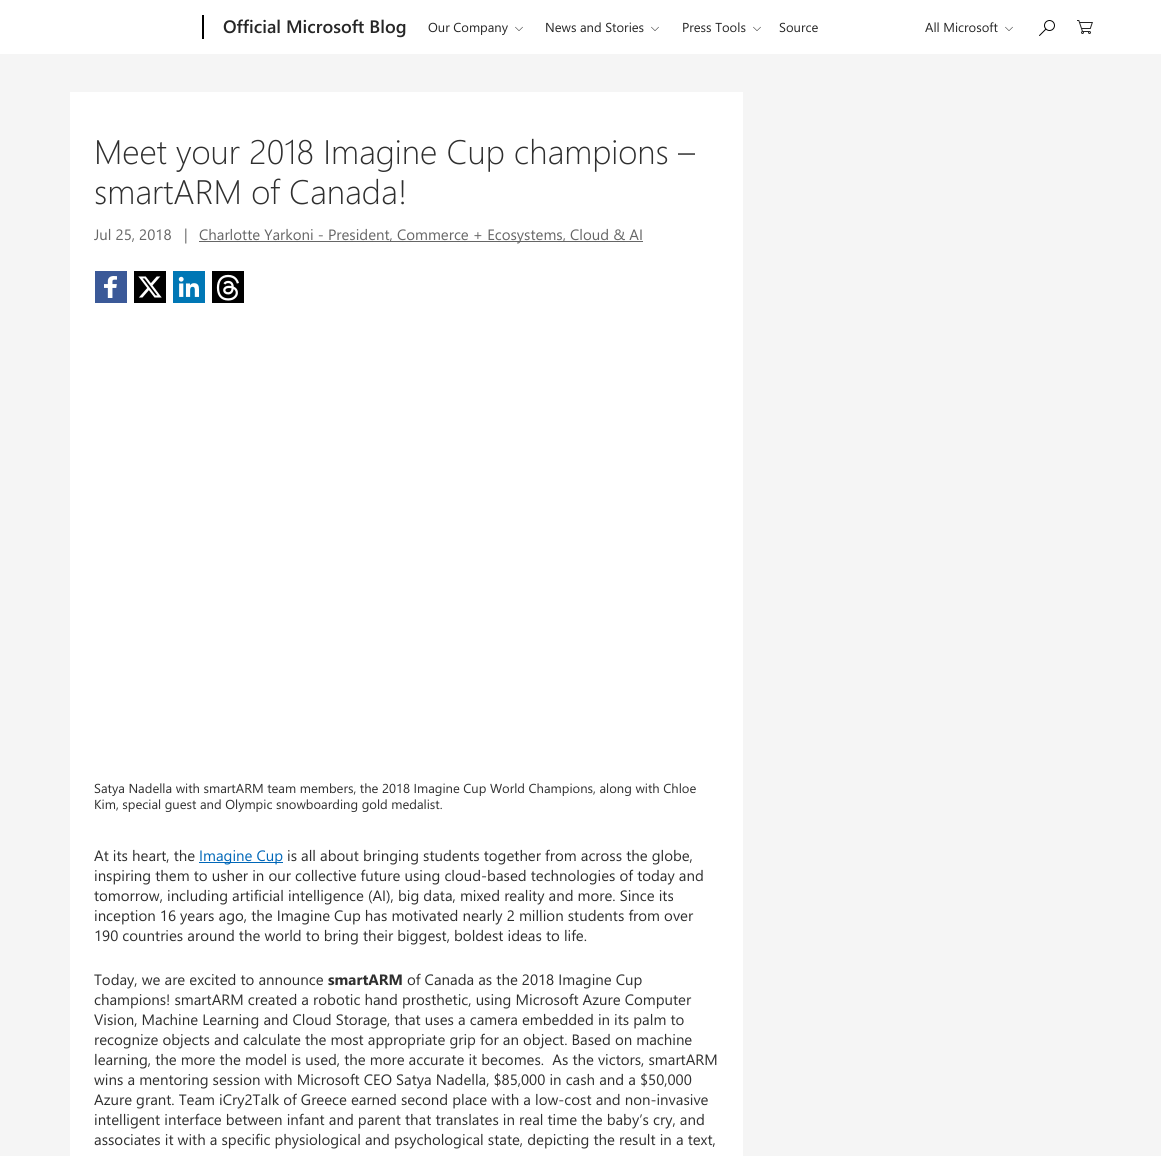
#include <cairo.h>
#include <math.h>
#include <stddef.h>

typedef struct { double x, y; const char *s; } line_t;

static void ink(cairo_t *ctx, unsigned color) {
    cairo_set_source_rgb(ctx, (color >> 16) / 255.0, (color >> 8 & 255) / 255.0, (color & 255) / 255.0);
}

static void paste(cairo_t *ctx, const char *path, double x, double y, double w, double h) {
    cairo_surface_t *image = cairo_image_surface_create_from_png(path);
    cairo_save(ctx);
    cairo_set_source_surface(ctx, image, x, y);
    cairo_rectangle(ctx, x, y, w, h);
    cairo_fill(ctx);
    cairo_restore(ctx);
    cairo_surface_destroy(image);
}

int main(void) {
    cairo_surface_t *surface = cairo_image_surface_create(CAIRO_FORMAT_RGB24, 1161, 1156);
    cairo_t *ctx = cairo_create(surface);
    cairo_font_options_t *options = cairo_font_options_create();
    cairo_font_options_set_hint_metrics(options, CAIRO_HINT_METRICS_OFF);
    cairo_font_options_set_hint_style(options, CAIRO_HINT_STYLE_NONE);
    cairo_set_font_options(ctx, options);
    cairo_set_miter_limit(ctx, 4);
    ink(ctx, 0xF5F5F5);
    cairo_paint(ctx);
    ink(ctx, 0xFFFFFF);
    cairo_rectangle(ctx, 0, 0, 1161, 54);
    cairo_fill(ctx);
    ink(ctx, 0x000000);
    cairo_rectangle(ctx, 202, 15, 2, 24);
    cairo_fill(ctx);
    cairo_select_font_face(ctx, "Segoe UI SemiBold", CAIRO_FONT_SLANT_NORMAL, CAIRO_FONT_WEIGHT_NORMAL);
    cairo_set_font_size(ctx, 18);
    ink(ctx, 0x262626);
    cairo_move_to(ctx, 223, 33);
    cairo_show_text(ctx, "Official Microsoft Blog");
    cairo_select_font_face(ctx, "Segoe UI", CAIRO_FONT_SLANT_NORMAL, CAIRO_FONT_WEIGHT_NORMAL);
    cairo_set_font_size(ctx, 13);
    cairo_move_to(ctx, 428, 32);
    cairo_show_text(ctx, "Our Company");
    paste(ctx, "media/1.png", 515, 26, 8, 5);
    cairo_move_to(ctx, 545, 32);
    cairo_show_text(ctx, "News and Stories");
    paste(ctx, "media/1.png", 651, 26, 8, 5);
    cairo_move_to(ctx, 682, 32);
    cairo_show_text(ctx, "Press Tools");
    paste(ctx, "media/1.png", 753, 26, 8, 5);
    cairo_move_to(ctx, 779, 32);
    cairo_show_text(ctx, "Source");
    cairo_move_to(ctx, 925, 32);
    cairo_show_text(ctx, "All Microsoft");
    paste(ctx, "media/1.png", 1005, 26, 8, 5);
    paste(ctx, "media/2.png", 1039, 20, 16, 16);
    paste(ctx, "media/3.png", 1077, 20, 16, 14);
    ink(ctx, 0xFFFFFF);
    cairo_rectangle(ctx, 70, 92, 673, 1064);
    cairo_fill(ctx);
    cairo_select_font_face(ctx, "Segoe UI Light", CAIRO_FONT_SLANT_NORMAL, CAIRO_FONT_WEIGHT_NORMAL);
    cairo_set_font_size(ctx, 34);
    ink(ctx, 0x2F2F2F);
    cairo_move_to(ctx, 94, 164);
    cairo_show_text(ctx, "Meet your 2018 Imagine Cup champions –");
    cairo_move_to(ctx, 94, 204);
    cairo_show_text(ctx, "smartARM of Canada!");
    cairo_select_font_face(ctx, "Segoe UI", CAIRO_FONT_SLANT_NORMAL, CAIRO_FONT_WEIGHT_NORMAL);
    cairo_set_font_size(ctx, 15);
    ink(ctx, 0x666666);
    cairo_move_to(ctx, 94, 240);
    cairo_show_text(ctx, "Jul 25, 2018");
    cairo_move_to(ctx, 184, 240);
    cairo_show_text(ctx, "|");
    cairo_rectangle(ctx, 199, 241, 444, 1);
    cairo_fill(ctx);
    cairo_move_to(ctx, 199, 240);
    cairo_show_text(ctx, "Charlotte Yarkoni - President, Commerce + Ecosystems, Cloud & AI");
    ink(ctx, 0x3B5998);
    cairo_rectangle(ctx, 95, 271, 32, 32);
    cairo_fill(ctx);
    paste(ctx, "media/4.png", 104, 276, 13, 22);
    ink(ctx, 0x000000);
    cairo_rectangle(ctx, 134, 271, 32, 32);
    cairo_fill(ctx);
    paste(ctx, "media/5.png", 138, 276, 24, 22);
    ink(ctx, 0x0077B5);
    cairo_rectangle(ctx, 173, 271, 32, 32);
    cairo_fill(ctx);
    paste(ctx, "media/6.png", 178, 276, 21, 21);
    ink(ctx, 0x000000);
    cairo_rectangle(ctx, 212, 271, 32, 32);
    cairo_fill(ctx);
    paste(ctx, "media/7.png", 216, 274, 23, 27);
    cairo_set_font_size(ctx, 13);
    ink(ctx, 0x2F2F2F);
    cairo_move_to(ctx, 94, 793);
    cairo_show_text(ctx, "Satya Nadella with smartARM team members, the 2018 Imagine Cup World Champions, along with Chloe");
    cairo_move_to(ctx, 94, 809);
    cairo_show_text(ctx, "Kim, special guest and Olympic snowboarding gold medalist.");
    cairo_set_font_size(ctx, 15);
    cairo_move_to(ctx, 94, 861);
    cairo_show_text(ctx, "At its heart, the");
    ink(ctx, 0x0067B8);
    cairo_rectangle(ctx, 199, 862, 84, 1);
    cairo_fill(ctx);
    cairo_move_to(ctx, 199, 861);
    cairo_show_text(ctx, "Imagine Cup");
    ink(ctx, 0x2F2F2F);
    {
        static const line_t items[] = {
            {287, 861, "is all about bringing students together from across the globe,"},
            {94, 881, "inspiring them to usher in our collective future using cloud-based technologies of today and"},
            {94, 901, "tomorrow, including artificial intelligence (AI), big data, mixed reality and more. Since its"},
            {94, 921, "inception 16 years ago, the Imagine Cup has motivated nearly 2 million students from over"},
            {94, 941, "190 countries around the world to bring their biggest, boldest ideas to life."},
            {94, 985, "Today, we are excited to announce"},
        };
        for (size_t i = 0; i < sizeof items / sizeof *items; i++) {
            cairo_move_to(ctx, items[i].x, items[i].y);
            cairo_show_text(ctx, items[i].s);
        }
    }
    cairo_select_font_face(ctx, "Segoe UI", CAIRO_FONT_SLANT_NORMAL, CAIRO_FONT_WEIGHT_BOLD);
    cairo_move_to(ctx, 328, 985);
    cairo_show_text(ctx, "smartARM");
    cairo_select_font_face(ctx, "Segoe UI", CAIRO_FONT_SLANT_NORMAL, CAIRO_FONT_WEIGHT_NORMAL);
    {
        static const line_t items[] = {
            {407, 985, "of Canada as the 2018 Imagine Cup"},
            {94, 1005, "champions! smartARM created a robotic hand prosthetic, using Microsoft Azure Computer"},
            {94, 1025, "Vision, Machine Learning and Cloud Storage, that uses a camera embedded in its palm to"},
            {94, 1045, "recognize objects and calculate the most appropriate grip for an object. Based on machine"},
            {94, 1065, "learning, the more the model is used, the more accurate it becomes.  As the victors, smartARM"},
            {94, 1085, "wins a mentoring session with Microsoft CEO Satya Nadella, $85,000 in cash and a $50,000"},
            {94, 1105, "Azure grant. Team iCry2Talk of Greece earned second place with a low-cost and non-invasive"},
            {94, 1125, "intelligent interface between infant and parent that translates in real time the baby’s cry, and"},
            {94, 1145, "associates it with a specific physiological and psychological state, depicting the result in a text,"},
        };
        for (size_t i = 0; i < sizeof items / sizeof *items; i++) {
            cairo_move_to(ctx, items[i].x, items[i].y);
            cairo_show_text(ctx, items[i].s);
        }
    }
    cairo_surface_write_to_png(surface, "image.png");
    cairo_font_options_destroy(options);
    cairo_destroy(ctx);
    cairo_surface_destroy(surface);
    return 0;
}
